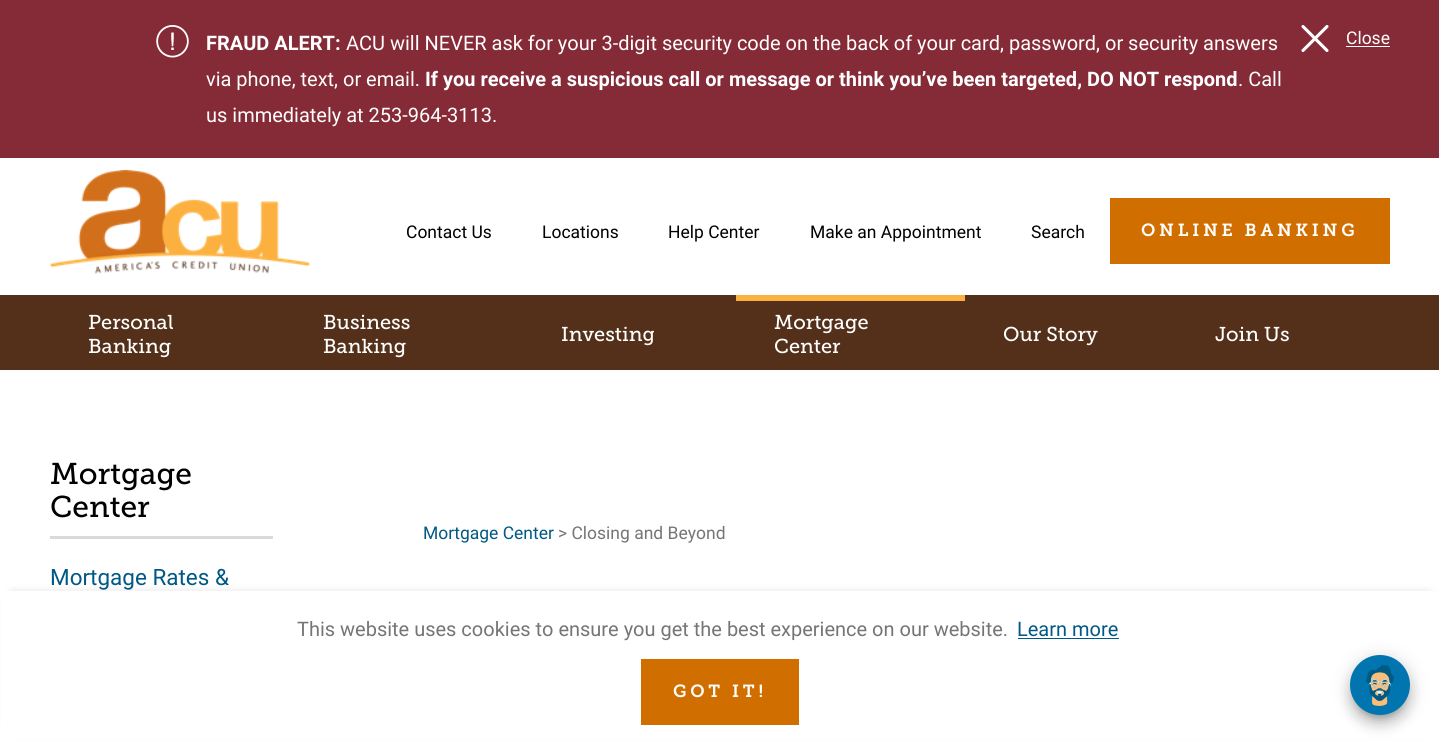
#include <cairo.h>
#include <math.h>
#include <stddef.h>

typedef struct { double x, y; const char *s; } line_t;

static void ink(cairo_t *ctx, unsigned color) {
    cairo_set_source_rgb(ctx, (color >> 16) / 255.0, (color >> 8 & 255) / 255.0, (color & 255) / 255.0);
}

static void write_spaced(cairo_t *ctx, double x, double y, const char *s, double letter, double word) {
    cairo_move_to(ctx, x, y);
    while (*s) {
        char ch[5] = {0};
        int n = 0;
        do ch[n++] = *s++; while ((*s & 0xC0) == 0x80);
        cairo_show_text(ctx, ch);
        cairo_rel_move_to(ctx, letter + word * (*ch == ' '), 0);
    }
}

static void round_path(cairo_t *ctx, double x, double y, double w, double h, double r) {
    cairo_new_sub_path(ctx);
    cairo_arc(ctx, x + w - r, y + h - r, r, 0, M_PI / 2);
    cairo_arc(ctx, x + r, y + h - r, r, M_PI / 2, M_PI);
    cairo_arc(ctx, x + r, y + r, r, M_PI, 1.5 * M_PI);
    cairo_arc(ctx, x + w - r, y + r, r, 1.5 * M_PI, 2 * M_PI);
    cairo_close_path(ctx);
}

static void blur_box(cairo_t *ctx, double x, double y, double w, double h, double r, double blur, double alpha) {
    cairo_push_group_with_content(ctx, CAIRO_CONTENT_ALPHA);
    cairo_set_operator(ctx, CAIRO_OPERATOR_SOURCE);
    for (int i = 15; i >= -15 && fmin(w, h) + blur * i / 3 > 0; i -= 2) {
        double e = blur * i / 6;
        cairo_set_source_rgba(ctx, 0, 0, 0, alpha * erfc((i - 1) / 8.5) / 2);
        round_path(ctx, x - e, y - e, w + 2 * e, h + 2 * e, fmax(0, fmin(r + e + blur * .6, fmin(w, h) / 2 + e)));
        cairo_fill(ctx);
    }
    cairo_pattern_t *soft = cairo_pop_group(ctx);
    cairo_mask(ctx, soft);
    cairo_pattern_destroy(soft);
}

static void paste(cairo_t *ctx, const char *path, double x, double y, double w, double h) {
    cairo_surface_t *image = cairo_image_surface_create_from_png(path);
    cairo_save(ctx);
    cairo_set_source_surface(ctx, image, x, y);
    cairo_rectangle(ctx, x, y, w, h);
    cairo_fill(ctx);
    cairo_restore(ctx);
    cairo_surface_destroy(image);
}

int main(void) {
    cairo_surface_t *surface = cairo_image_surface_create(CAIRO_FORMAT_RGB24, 1439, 745);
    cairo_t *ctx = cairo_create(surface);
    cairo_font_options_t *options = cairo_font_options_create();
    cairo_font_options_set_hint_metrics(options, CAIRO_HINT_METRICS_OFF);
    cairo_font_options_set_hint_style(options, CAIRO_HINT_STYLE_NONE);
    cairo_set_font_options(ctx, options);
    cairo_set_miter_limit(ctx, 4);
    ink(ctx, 0xFFFFFF);
    cairo_paint(ctx);
    ink(ctx, 0x842B37);
    cairo_rectangle(ctx, 0, 0, 1439, 158);
    cairo_fill(ctx);
    paste(ctx, "media/1.png", 156, 25, 33, 33);
    cairo_select_font_face(ctx, "Roboto", CAIRO_FONT_SLANT_NORMAL, CAIRO_FONT_WEIGHT_BOLD);
    cairo_set_font_size(ctx, 20);
    ink(ctx, 0xFFFFFF);
    cairo_move_to(ctx, 206, 50);
    cairo_show_text(ctx, "FRAUD ALERT:");
    cairo_select_font_face(ctx, "Roboto", CAIRO_FONT_SLANT_NORMAL, CAIRO_FONT_WEIGHT_NORMAL);
    cairo_move_to(ctx, 346, 50);
    cairo_show_text(ctx, "ACU will NEVER ask for your 3-digit security code on the back of your card, password, or security answers");
    cairo_move_to(ctx, 206, 86);
    cairo_show_text(ctx, "via phone, text, or email.");
    cairo_select_font_face(ctx, "Roboto", CAIRO_FONT_SLANT_NORMAL, CAIRO_FONT_WEIGHT_BOLD);
    cairo_move_to(ctx, 425, 86);
    cairo_show_text(ctx, "If you receive a suspicious call or message or think you’ve been targeted, DO NOT respond");
    cairo_select_font_face(ctx, "Roboto", CAIRO_FONT_SLANT_NORMAL, CAIRO_FONT_WEIGHT_NORMAL);
    cairo_move_to(ctx, 1238, 86);
    cairo_show_text(ctx, ". Call");
    cairo_move_to(ctx, 206, 122);
    cairo_show_text(ctx, "us immediately at 253-964-3113.");
    cairo_new_path(ctx);
    cairo_move_to(ctx, 1327, 26.5);
    cairo_line_to(ctx, 1303, 50.5);
    cairo_move_to(ctx, 1303, 26.5);
    cairo_line_to(ctx, 1327, 50.5);
    cairo_set_line_width(ctx, 3.1);
    cairo_set_line_cap(ctx, CAIRO_LINE_CAP_ROUND);
    cairo_stroke(ctx);
    cairo_set_font_size(ctx, 17.5);
    cairo_move_to(ctx, 1346, 44);
    cairo_show_text(ctx, "Close");
    cairo_rectangle(ctx, 1346, 46, 44, 1);
    cairo_fill(ctx);
    paste(ctx, "media/2.png", 50, 170, 260, 104);
    ink(ctx, 0x54301A);
    cairo_rectangle(ctx, 0, 295, 1439, 75);
    cairo_fill(ctx);
    ink(ctx, 0x000000);
    {
        static const line_t items[] = {
            {406, 238, "Contact Us"},
            {542, 238, "Locations"},
            {668, 238, "Help Center"},
            {810, 238, "Make an Appointment"},
            {1031, 238, "Search"},
        };
        for (size_t i = 0; i < sizeof items / sizeof *items; i++) {
            cairo_move_to(ctx, items[i].x, items[i].y);
            cairo_show_text(ctx, items[i].s);
        }
    }
    ink(ctx, 0xD06F00);
    cairo_rectangle(ctx, 1110, 198, 280, 66);
    cairo_fill(ctx);
    cairo_select_font_face(ctx, "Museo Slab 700 SemiBold", CAIRO_FONT_SLANT_NORMAL, CAIRO_FONT_WEIGHT_NORMAL);
    ink(ctx, 0xFFFFFF);
    write_spaced(ctx, 1141, 236, "ONLINE BANKING", 3.75, 0);
    cairo_select_font_face(ctx, "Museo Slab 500", CAIRO_FONT_SLANT_NORMAL, CAIRO_FONT_WEIGHT_NORMAL);
    cairo_set_font_size(ctx, 20);
    {
        static const line_t items[] = {
            {88, 329, "Personal"},
            {88, 353, "Banking"},
            {323, 329, "Business"},
            {323, 353, "Banking"},
            {561, 341, "Investing"},
        };
        for (size_t i = 0; i < sizeof items / sizeof *items; i++) {
            cairo_move_to(ctx, items[i].x, items[i].y);
            cairo_show_text(ctx, items[i].s);
        }
    }
    ink(ctx, 0xFBB040);
    cairo_rectangle(ctx, 736, 295, 229, 6);
    cairo_fill(ctx);
    ink(ctx, 0xFFFFFF);
    {
        static const line_t items[] = {
            {774, 329, "Mortgage"},
            {774, 353, "Center"},
            {1003, 341, "Our Story"},
            {1215, 341, "Join Us"},
        };
        for (size_t i = 0; i < sizeof items / sizeof *items; i++) {
            cairo_move_to(ctx, items[i].x, items[i].y);
            cairo_show_text(ctx, items[i].s);
        }
    }
    ink(ctx, 0xDADADA);
    cairo_rectangle(ctx, 50, 536, 223, 3);
    cairo_fill(ctx);
    cairo_set_font_size(ctx, 30);
    ink(ctx, 0x000000);
    cairo_move_to(ctx, 50, 484);
    cairo_show_text(ctx, "Mortgage");
    cairo_move_to(ctx, 50, 517);
    cairo_show_text(ctx, "Center");
    cairo_select_font_face(ctx, "Roboto", CAIRO_FONT_SLANT_NORMAL, CAIRO_FONT_WEIGHT_NORMAL);
    cairo_set_font_size(ctx, 22.5);
    ink(ctx, 0x005984);
    cairo_move_to(ctx, 50, 585);
    cairo_show_text(ctx, "Mortgage Rates &");
    cairo_set_font_size(ctx, 17.5);
    cairo_move_to(ctx, 423, 539);
    cairo_show_text(ctx, "Mortgage Center");
    ink(ctx, 0x757575);
    cairo_move_to(ctx, 558, 539);
    cairo_show_text(ctx, "> Closing and Beyond");
    ink(ctx, 0x000000);
    blur_box(ctx, 13, 598, 1415, 128, 0, 6, 0.5);
    ink(ctx, 0xFFFFFF);
    cairo_rectangle(ctx, 1, 591, 1438, 147);
    cairo_fill(ctx);
    cairo_set_font_size(ctx, 20);
    ink(ctx, 0x757575);
    cairo_move_to(ctx, 297, 636);
    cairo_show_text(ctx, "This website uses cookies to ensure you get the best experience on our website.");
    ink(ctx, 0x005984);
    cairo_move_to(ctx, 1017, 636);
    cairo_show_text(ctx, "Learn more");
    cairo_rectangle(ctx, 1018, 638, 101, 1);
    cairo_fill(ctx);
    ink(ctx, 0xD06F00);
    cairo_rectangle(ctx, 641, 659, 158, 66);
    cairo_fill(ctx);
    cairo_select_font_face(ctx, "Museo Slab 700 SemiBold", CAIRO_FONT_SLANT_NORMAL, CAIRO_FONT_WEIGHT_NORMAL);
    cairo_set_font_size(ctx, 17.5);
    ink(ctx, 0xFFFFFF);
    write_spaced(ctx, 673, 697, "GOT IT!", 3.75, 0);
    ink(ctx, 0x000000);
    blur_box(ctx, 1354, 665, 52, 53, 26, 3, 0.2);
    blur_box(ctx, 1349, 664, 62, 62, 31, 6, 0.14);
    blur_box(ctx, 1348, 656, 65, 65, 32.5, 9, 0.12);
    ink(ctx, 0x0075AF);
    cairo_arc(ctx, 1380, 685, 30, 0, 2 * M_PI);
    cairo_fill(ctx);
    paste(ctx, "media/3.png", 1366, 664, 28, 42);
    cairo_surface_write_to_png(surface, "image.png");
    cairo_font_options_destroy(options);
    cairo_destroy(ctx);
    cairo_surface_destroy(surface);
    return 0;
}
